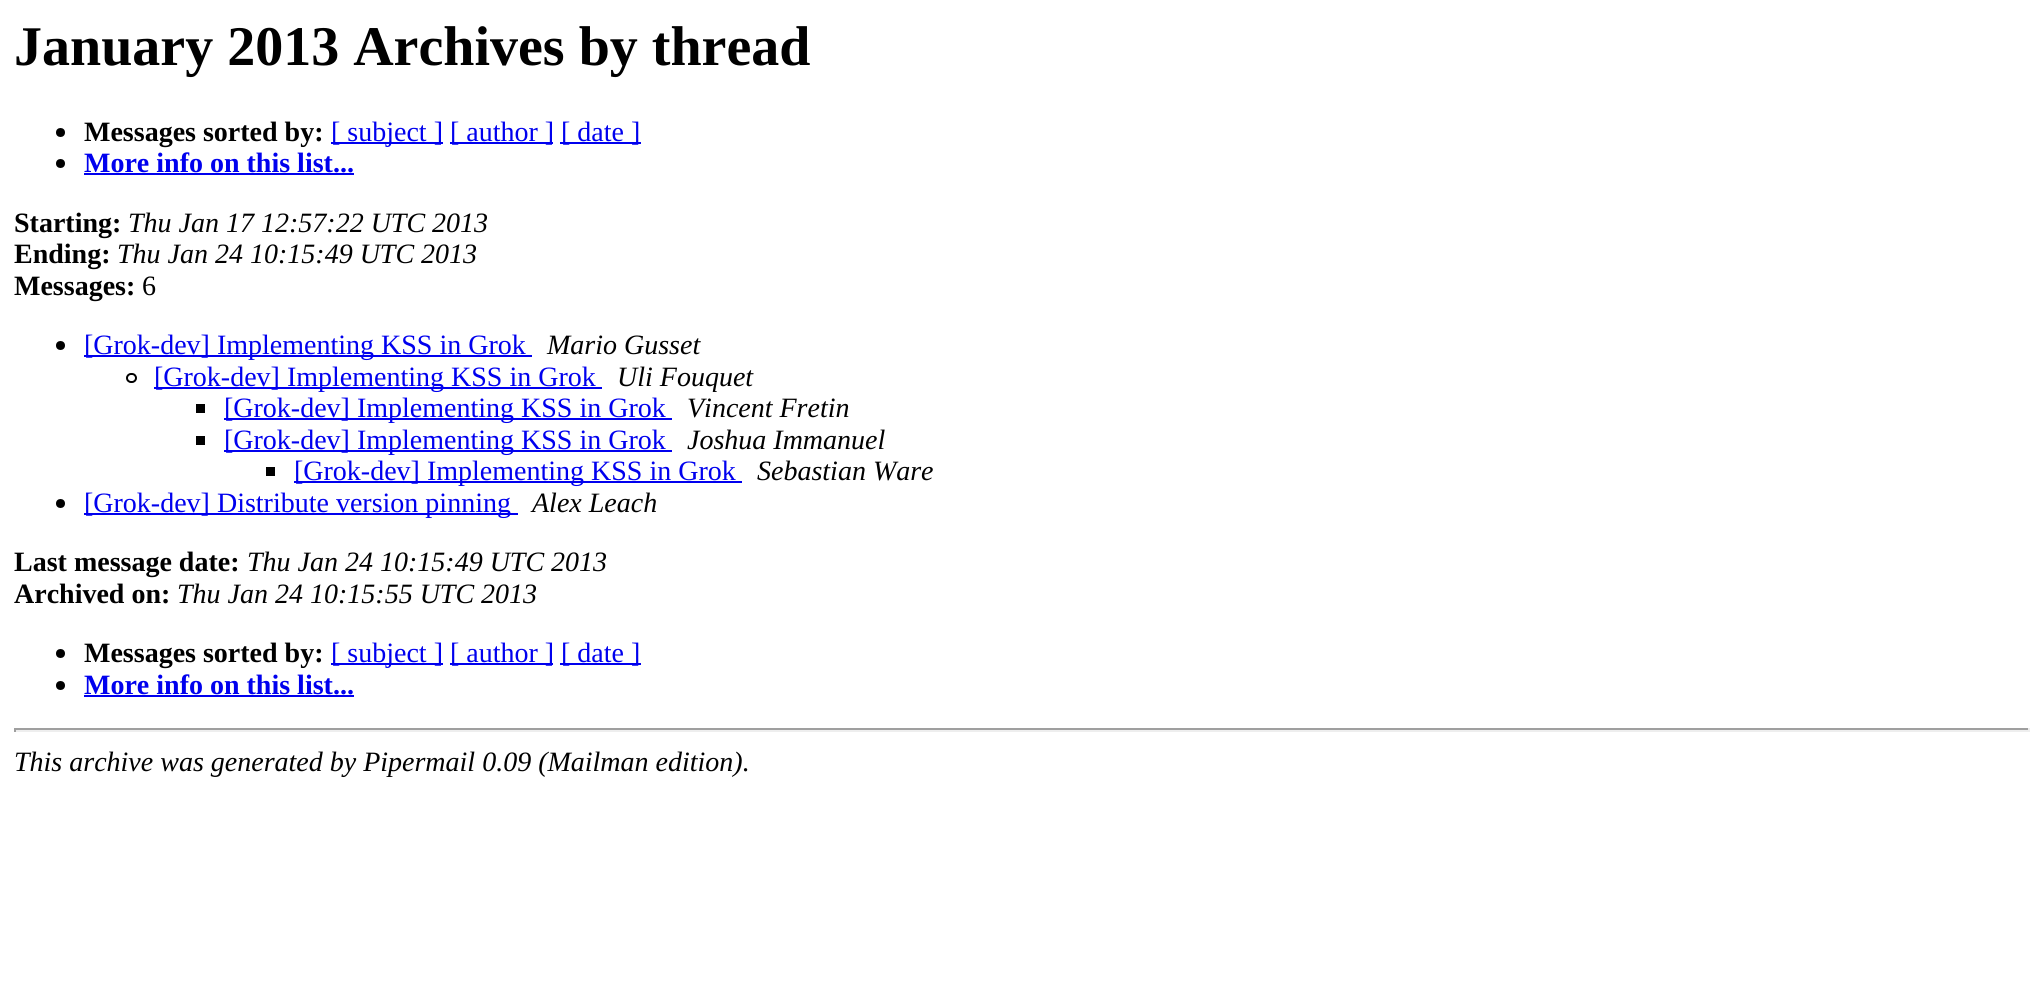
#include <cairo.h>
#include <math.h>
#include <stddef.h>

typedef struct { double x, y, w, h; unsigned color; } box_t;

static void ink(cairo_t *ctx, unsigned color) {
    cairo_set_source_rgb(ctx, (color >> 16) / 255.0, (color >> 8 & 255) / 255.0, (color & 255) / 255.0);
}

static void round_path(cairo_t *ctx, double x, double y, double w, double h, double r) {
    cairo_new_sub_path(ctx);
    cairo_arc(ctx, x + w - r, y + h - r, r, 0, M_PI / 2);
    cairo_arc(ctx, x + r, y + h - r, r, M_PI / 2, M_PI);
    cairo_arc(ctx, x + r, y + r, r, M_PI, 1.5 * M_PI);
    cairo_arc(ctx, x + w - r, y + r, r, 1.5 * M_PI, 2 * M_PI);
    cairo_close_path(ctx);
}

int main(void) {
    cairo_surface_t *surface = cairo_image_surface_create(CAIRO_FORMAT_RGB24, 2044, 987);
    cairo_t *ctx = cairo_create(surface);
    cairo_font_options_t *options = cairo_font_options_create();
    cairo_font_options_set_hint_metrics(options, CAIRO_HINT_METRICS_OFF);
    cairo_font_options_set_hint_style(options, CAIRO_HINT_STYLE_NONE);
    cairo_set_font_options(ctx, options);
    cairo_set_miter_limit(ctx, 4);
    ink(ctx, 0xFFFFFF);
    cairo_paint(ctx);
    cairo_select_font_face(ctx, "Liberation Serif", CAIRO_FONT_SLANT_NORMAL, CAIRO_FONT_WEIGHT_BOLD);
    cairo_set_font_size(ctx, 56);
    ink(ctx, 0x000000);
    cairo_move_to(ctx, 14, 65);
    cairo_show_text(ctx, "January 2013 Archives by thread");
    cairo_new_path(ctx);
    cairo_arc(ctx, 60.5, 132.5, 4.5, 0, 2 * M_PI);
    cairo_fill(ctx);
    cairo_set_font_size(ctx, 28);
    cairo_move_to(ctx, 84, 141);
    cairo_show_text(ctx, "Messages sorted by:");
    ink(ctx, 0x0000EE);
    cairo_rectangle(ctx, 331, 142, 112, 2);
    cairo_fill(ctx);
    cairo_select_font_face(ctx, "Liberation Serif", CAIRO_FONT_SLANT_NORMAL, CAIRO_FONT_WEIGHT_NORMAL);
    cairo_move_to(ctx, 331, 141);
    cairo_show_text(ctx, "[ subject ]");
    cairo_rectangle(ctx, 450, 142, 103, 2);
    cairo_fill(ctx);
    cairo_move_to(ctx, 450, 141);
    cairo_show_text(ctx, "[ author ]");
    cairo_rectangle(ctx, 560, 142, 81, 2);
    cairo_fill(ctx);
    cairo_move_to(ctx, 561, 141);
    cairo_show_text(ctx, "[ date ]");
    ink(ctx, 0x000000);
    cairo_new_path(ctx);
    cairo_arc(ctx, 60.5, 163.5, 4.5, 0, 2 * M_PI);
    cairo_fill(ctx);
    cairo_select_font_face(ctx, "Liberation Serif", CAIRO_FONT_SLANT_NORMAL, CAIRO_FONT_WEIGHT_BOLD);
    ink(ctx, 0x0000EE);
    cairo_move_to(ctx, 84, 172);
    cairo_show_text(ctx, "More info on this list...");
    cairo_rectangle(ctx, 84, 173, 270, 2);
    cairo_fill(ctx);
    ink(ctx, 0x000000);
    cairo_move_to(ctx, 14, 232);
    cairo_show_text(ctx, "Starting:");
    cairo_select_font_face(ctx, "Liberation Serif", CAIRO_FONT_SLANT_ITALIC, CAIRO_FONT_WEIGHT_NORMAL);
    cairo_move_to(ctx, 128, 232);
    cairo_show_text(ctx, "Thu Jan 17 12:57:22 UTC 2013");
    cairo_select_font_face(ctx, "Liberation Serif", CAIRO_FONT_SLANT_NORMAL, CAIRO_FONT_WEIGHT_BOLD);
    cairo_move_to(ctx, 14, 263);
    cairo_show_text(ctx, "Ending:");
    cairo_select_font_face(ctx, "Liberation Serif", CAIRO_FONT_SLANT_ITALIC, CAIRO_FONT_WEIGHT_NORMAL);
    cairo_move_to(ctx, 117, 263);
    cairo_show_text(ctx, "Thu Jan 24 10:15:49 UTC 2013");
    cairo_select_font_face(ctx, "Liberation Serif", CAIRO_FONT_SLANT_NORMAL, CAIRO_FONT_WEIGHT_BOLD);
    cairo_move_to(ctx, 14, 295);
    cairo_show_text(ctx, "Messages:");
    cairo_select_font_face(ctx, "Liberation Serif", CAIRO_FONT_SLANT_NORMAL, CAIRO_FONT_WEIGHT_NORMAL);
    cairo_move_to(ctx, 142, 295);
    cairo_show_text(ctx, "6");
    cairo_new_path(ctx);
    cairo_arc(ctx, 60.5, 345.5, 4.5, 0, 2 * M_PI);
    cairo_fill(ctx);
    ink(ctx, 0x0000EE);
    cairo_rectangle(ctx, 84, 355, 448, 2);
    cairo_fill(ctx);
    cairo_move_to(ctx, 84, 354);
    cairo_show_text(ctx, "[Grok-dev] Implementing KSS in Grok");
    cairo_select_font_face(ctx, "Liberation Serif", CAIRO_FONT_SLANT_ITALIC, CAIRO_FONT_WEIGHT_NORMAL);
    ink(ctx, 0x000000);
    cairo_move_to(ctx, 547, 354);
    cairo_show_text(ctx, "Mario Gusset");
    round_path(ctx, 127, 374, 9, 8, 4);
    cairo_stroke(ctx);
    ink(ctx, 0x0000EE);
    cairo_rectangle(ctx, 154, 387, 448, 2);
    cairo_fill(ctx);
    cairo_select_font_face(ctx, "Liberation Serif", CAIRO_FONT_SLANT_NORMAL, CAIRO_FONT_WEIGHT_NORMAL);
    cairo_move_to(ctx, 154, 386);
    cairo_show_text(ctx, "[Grok-dev] Implementing KSS in Grok");
    cairo_select_font_face(ctx, "Liberation Serif", CAIRO_FONT_SLANT_ITALIC, CAIRO_FONT_WEIGHT_NORMAL);
    ink(ctx, 0x000000);
    cairo_move_to(ctx, 617, 386);
    cairo_show_text(ctx, "Uli Fouquet");
    cairo_rectangle(ctx, 196, 404, 9, 9);
    cairo_fill(ctx);
    ink(ctx, 0x0000EE);
    cairo_rectangle(ctx, 224, 418, 448, 2);
    cairo_fill(ctx);
    cairo_select_font_face(ctx, "Liberation Serif", CAIRO_FONT_SLANT_NORMAL, CAIRO_FONT_WEIGHT_NORMAL);
    cairo_move_to(ctx, 224, 417);
    cairo_show_text(ctx, "[Grok-dev] Implementing KSS in Grok");
    cairo_select_font_face(ctx, "Liberation Serif", CAIRO_FONT_SLANT_ITALIC, CAIRO_FONT_WEIGHT_NORMAL);
    ink(ctx, 0x000000);
    cairo_move_to(ctx, 687, 417);
    cairo_show_text(ctx, "Vincent Fretin");
    cairo_rectangle(ctx, 196, 436, 9, 9);
    cairo_fill(ctx);
    ink(ctx, 0x0000EE);
    cairo_rectangle(ctx, 224, 450, 448, 2);
    cairo_fill(ctx);
    cairo_select_font_face(ctx, "Liberation Serif", CAIRO_FONT_SLANT_NORMAL, CAIRO_FONT_WEIGHT_NORMAL);
    cairo_move_to(ctx, 224, 449);
    cairo_show_text(ctx, "[Grok-dev] Implementing KSS in Grok");
    cairo_select_font_face(ctx, "Liberation Serif", CAIRO_FONT_SLANT_ITALIC, CAIRO_FONT_WEIGHT_NORMAL);
    ink(ctx, 0x000000);
    cairo_move_to(ctx, 687, 449);
    cairo_show_text(ctx, "Joshua Immanuel");
    cairo_rectangle(ctx, 266, 467, 9, 9);
    cairo_fill(ctx);
    ink(ctx, 0x0000EE);
    cairo_rectangle(ctx, 294, 481, 448, 2);
    cairo_fill(ctx);
    cairo_select_font_face(ctx, "Liberation Serif", CAIRO_FONT_SLANT_NORMAL, CAIRO_FONT_WEIGHT_NORMAL);
    cairo_move_to(ctx, 294, 480);
    cairo_show_text(ctx, "[Grok-dev] Implementing KSS in Grok");
    cairo_select_font_face(ctx, "Liberation Serif", CAIRO_FONT_SLANT_ITALIC, CAIRO_FONT_WEIGHT_NORMAL);
    ink(ctx, 0x000000);
    cairo_move_to(ctx, 757, 480);
    cairo_show_text(ctx, "Sebastian Ware");
    cairo_new_path(ctx);
    cairo_arc(ctx, 60.5, 503.5, 4.5, 0, 2 * M_PI);
    cairo_fill(ctx);
    ink(ctx, 0x0000EE);
    cairo_rectangle(ctx, 84, 513, 434, 2);
    cairo_fill(ctx);
    cairo_select_font_face(ctx, "Liberation Serif", CAIRO_FONT_SLANT_NORMAL, CAIRO_FONT_WEIGHT_NORMAL);
    cairo_move_to(ctx, 84, 512);
    cairo_show_text(ctx, "[Grok-dev] Distribute version pinning");
    cairo_select_font_face(ctx, "Liberation Serif", CAIRO_FONT_SLANT_ITALIC, CAIRO_FONT_WEIGHT_NORMAL);
    ink(ctx, 0x000000);
    cairo_move_to(ctx, 532, 512);
    cairo_show_text(ctx, "Alex Leach");
    cairo_select_font_face(ctx, "Liberation Serif", CAIRO_FONT_SLANT_NORMAL, CAIRO_FONT_WEIGHT_BOLD);
    cairo_move_to(ctx, 14, 571);
    cairo_show_text(ctx, "Last message date:");
    cairo_select_font_face(ctx, "Liberation Serif", CAIRO_FONT_SLANT_ITALIC, CAIRO_FONT_WEIGHT_NORMAL);
    cairo_move_to(ctx, 247, 571);
    cairo_show_text(ctx, "Thu Jan 24 10:15:49 UTC 2013");
    cairo_select_font_face(ctx, "Liberation Serif", CAIRO_FONT_SLANT_NORMAL, CAIRO_FONT_WEIGHT_BOLD);
    cairo_move_to(ctx, 14, 603);
    cairo_show_text(ctx, "Archived on:");
    cairo_select_font_face(ctx, "Liberation Serif", CAIRO_FONT_SLANT_ITALIC, CAIRO_FONT_WEIGHT_NORMAL);
    cairo_move_to(ctx, 177, 603);
    cairo_show_text(ctx, "Thu Jan 24 10:15:55 UTC 2013");
    cairo_new_path(ctx);
    cairo_arc(ctx, 60.5, 653.5, 4.5, 0, 2 * M_PI);
    cairo_fill(ctx);
    cairo_select_font_face(ctx, "Liberation Serif", CAIRO_FONT_SLANT_NORMAL, CAIRO_FONT_WEIGHT_BOLD);
    cairo_move_to(ctx, 84, 662);
    cairo_show_text(ctx, "Messages sorted by:");
    ink(ctx, 0x0000EE);
    cairo_rectangle(ctx, 331, 663, 112, 2);
    cairo_fill(ctx);
    cairo_select_font_face(ctx, "Liberation Serif", CAIRO_FONT_SLANT_NORMAL, CAIRO_FONT_WEIGHT_NORMAL);
    cairo_move_to(ctx, 331, 662);
    cairo_show_text(ctx, "[ subject ]");
    cairo_rectangle(ctx, 450, 663, 103, 2);
    cairo_fill(ctx);
    cairo_move_to(ctx, 450, 662);
    cairo_show_text(ctx, "[ author ]");
    cairo_rectangle(ctx, 560, 663, 81, 2);
    cairo_fill(ctx);
    cairo_move_to(ctx, 561, 662);
    cairo_show_text(ctx, "[ date ]");
    ink(ctx, 0x000000);
    cairo_new_path(ctx);
    cairo_arc(ctx, 60.5, 685.5, 4.5, 0, 2 * M_PI);
    cairo_fill(ctx);
    cairo_select_font_face(ctx, "Liberation Serif", CAIRO_FONT_SLANT_NORMAL, CAIRO_FONT_WEIGHT_BOLD);
    ink(ctx, 0x0000EE);
    cairo_move_to(ctx, 84, 694);
    cairo_show_text(ctx, "More info on this list...");
    {
        static const box_t items[] = {
            {84, 695, 270, 2, 0x0000EE},
            {14, 728, 2016, 2, 0x9F9F9F},
            {2028, 728, 2, 4, 0xEEEEEE},
            {14, 730, 2016, 2, 0xEEEEEE},
            {14, 728, 2, 4, 0x9F9F9F},
        };
        for (size_t i = 0; i < sizeof items / sizeof *items; i++) {
            ink(ctx, items[i].color);
            cairo_rectangle(ctx, items[i].x, items[i].y, items[i].w, items[i].h);
            cairo_fill(ctx);
        }
    }
    cairo_select_font_face(ctx, "Liberation Serif", CAIRO_FONT_SLANT_ITALIC, CAIRO_FONT_WEIGHT_NORMAL);
    ink(ctx, 0x000000);
    cairo_move_to(ctx, 14, 771);
    cairo_show_text(ctx, "This archive was generated by Pipermail 0.09 (Mailman edition).");
    cairo_surface_write_to_png(surface, "image.png");
    cairo_font_options_destroy(options);
    cairo_destroy(ctx);
    cairo_surface_destroy(surface);
    return 0;
}
